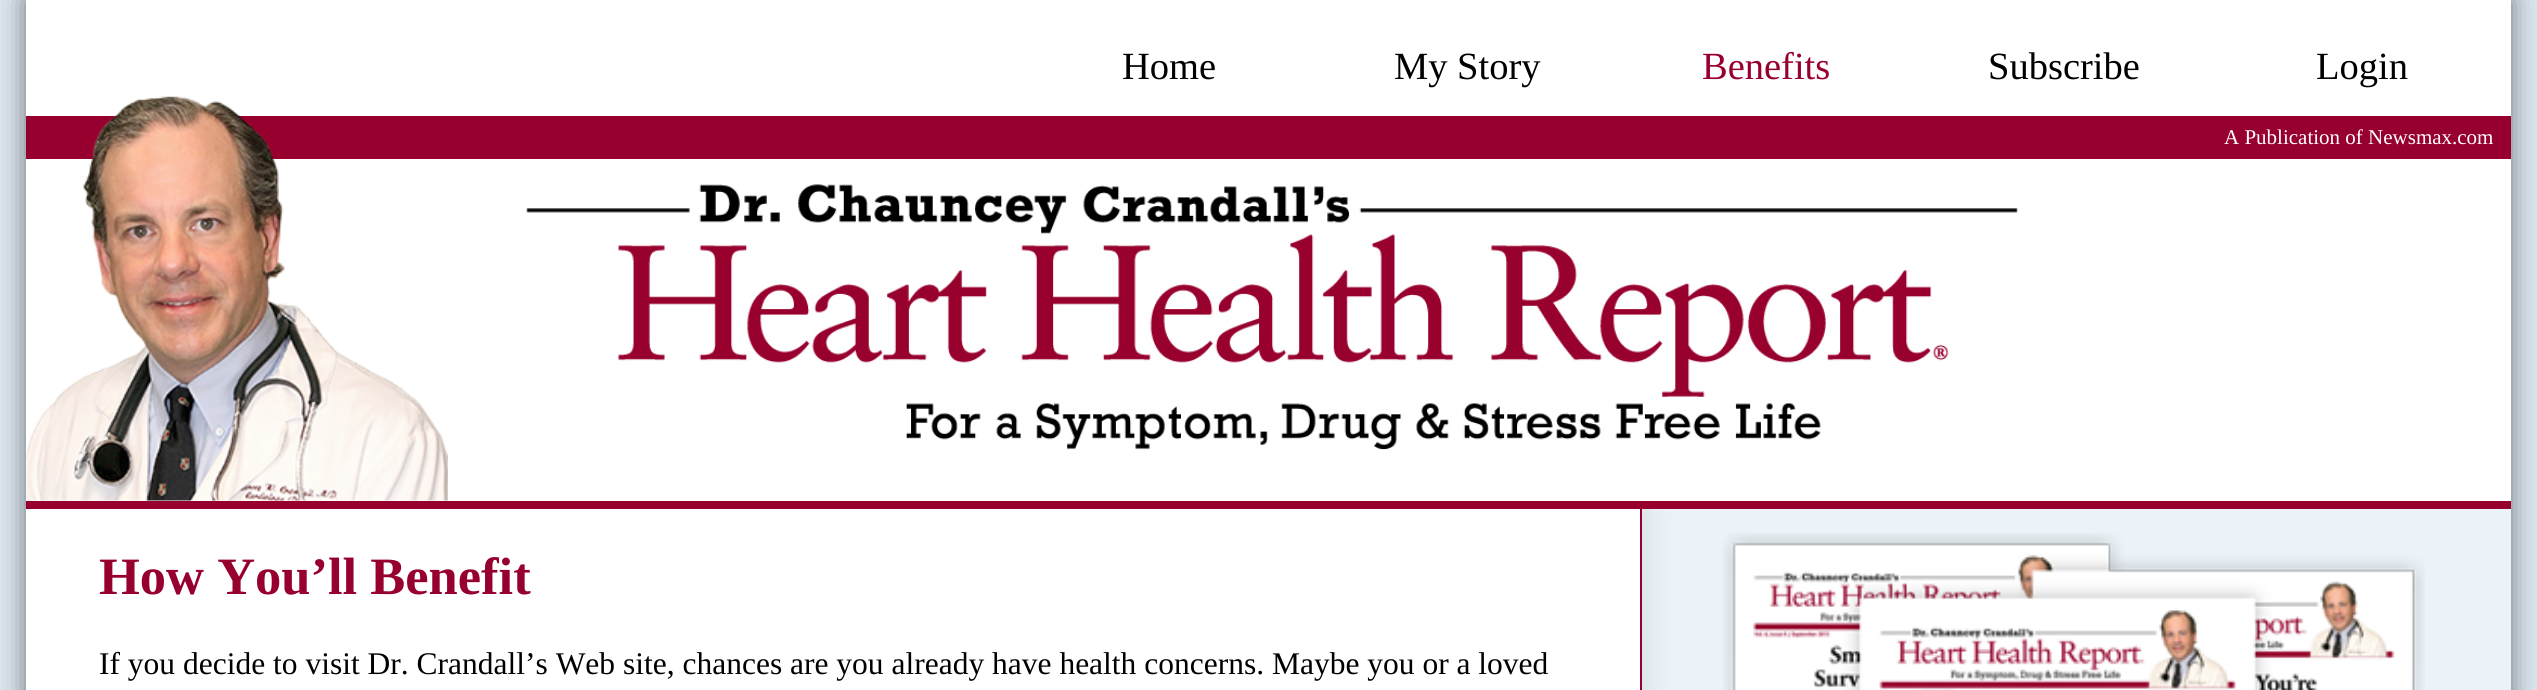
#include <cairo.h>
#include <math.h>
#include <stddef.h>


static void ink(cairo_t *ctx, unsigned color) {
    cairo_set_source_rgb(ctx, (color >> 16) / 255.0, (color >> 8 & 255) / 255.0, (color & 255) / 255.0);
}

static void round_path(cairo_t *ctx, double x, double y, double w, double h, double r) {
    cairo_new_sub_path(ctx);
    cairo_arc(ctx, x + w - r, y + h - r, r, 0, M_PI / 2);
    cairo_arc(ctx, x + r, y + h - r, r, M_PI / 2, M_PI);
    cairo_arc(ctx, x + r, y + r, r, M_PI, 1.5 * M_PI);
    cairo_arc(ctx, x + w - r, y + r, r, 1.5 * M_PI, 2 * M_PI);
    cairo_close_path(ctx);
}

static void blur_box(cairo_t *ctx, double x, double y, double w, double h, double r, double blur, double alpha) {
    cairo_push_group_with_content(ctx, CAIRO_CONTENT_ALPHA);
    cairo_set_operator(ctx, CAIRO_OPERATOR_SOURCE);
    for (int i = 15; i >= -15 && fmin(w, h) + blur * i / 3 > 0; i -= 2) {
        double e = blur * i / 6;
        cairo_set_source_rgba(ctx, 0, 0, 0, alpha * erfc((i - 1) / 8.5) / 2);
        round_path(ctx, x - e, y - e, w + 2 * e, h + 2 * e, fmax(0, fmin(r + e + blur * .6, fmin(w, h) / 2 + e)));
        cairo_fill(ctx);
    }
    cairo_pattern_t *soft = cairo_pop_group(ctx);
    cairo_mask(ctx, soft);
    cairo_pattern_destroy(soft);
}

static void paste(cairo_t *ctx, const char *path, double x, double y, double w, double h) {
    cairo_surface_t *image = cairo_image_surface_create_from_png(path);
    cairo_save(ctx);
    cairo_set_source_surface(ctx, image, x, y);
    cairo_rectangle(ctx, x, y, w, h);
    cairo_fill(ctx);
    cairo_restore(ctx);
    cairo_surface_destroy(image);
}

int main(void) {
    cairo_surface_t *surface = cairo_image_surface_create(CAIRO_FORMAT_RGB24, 2537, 690);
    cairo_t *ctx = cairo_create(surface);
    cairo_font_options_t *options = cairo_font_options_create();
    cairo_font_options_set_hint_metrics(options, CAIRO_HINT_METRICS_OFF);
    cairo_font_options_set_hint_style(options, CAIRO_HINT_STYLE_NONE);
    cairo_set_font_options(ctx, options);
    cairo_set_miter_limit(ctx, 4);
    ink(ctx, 0xDAE5EE);
    cairo_paint(ctx);
    ink(ctx, 0x000000);
    blur_box(ctx, 26, 0, 2485, 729, 0, 13, 0.5);
    ink(ctx, 0xFFFFFF);
    cairo_rectangle(ctx, 26, 0, 2485, 501);
    cairo_fill(ctx);
    ink(ctx, 0x97002E);
    cairo_rectangle(ctx, 26, 501, 2485, 8);
    cairo_fill(ctx);
    cairo_select_font_face(ctx, "Liberation Serif", CAIRO_FONT_SLANT_NORMAL, CAIRO_FONT_WEIGHT_NORMAL);
    cairo_set_font_size(ctx, 38.5);
    ink(ctx, 0x000000);
    cairo_move_to(ctx, 1122, 79);
    cairo_show_text(ctx, "Home");
    cairo_move_to(ctx, 1394, 79);
    cairo_show_text(ctx, "My Story");
    ink(ctx, 0x97002E);
    cairo_move_to(ctx, 1702, 79);
    cairo_show_text(ctx, "Benefits");
    ink(ctx, 0x000000);
    cairo_move_to(ctx, 1988, 79);
    cairo_show_text(ctx, "Subscribe");
    cairo_move_to(ctx, 2316, 79);
    cairo_show_text(ctx, "Login");
    paste(ctx, "media/1.png", 526, 184, 1492, 266);
    ink(ctx, 0x97002E);
    cairo_rectangle(ctx, 26, 116, 2485, 43);
    cairo_fill(ctx);
    ink(ctx, 0xECF3F8);
    cairo_rectangle(ctx, 1642, 509, 869, 181);
    cairo_fill(ctx);
    cairo_save(ctx);
    cairo_rectangle(ctx, 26, 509, 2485, 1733);
    cairo_clip(ctx);
    ink(ctx, 0x1D3454);
    blur_box(ctx, 33, 509, 1617, 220, 0, 13, 0.1);
    cairo_restore(ctx);
    paste(ctx, "media/2.png", 26, 95, 422, 406);
    cairo_set_font_size(ctx, 21);
    ink(ctx, 0xFFFFFF);
    cairo_move_to(ctx, 2224, 144);
    cairo_show_text(ctx, "A Publication of Newsmax.com");
    cairo_rectangle(ctx, 26, 509, 1614, 181);
    cairo_fill(ctx);
    ink(ctx, 0x97002E);
    cairo_rectangle(ctx, 1640, 509, 2, 181);
    cairo_fill(ctx);
    cairo_select_font_face(ctx, "Liberation Serif", CAIRO_FONT_SLANT_NORMAL, CAIRO_FONT_WEIGHT_BOLD);
    cairo_set_font_size(ctx, 52.5);
    cairo_move_to(ctx, 99, 594);
    cairo_show_text(ctx, "How You’ll Benefit");
    cairo_select_font_face(ctx, "Liberation Serif", CAIRO_FONT_SLANT_NORMAL, CAIRO_FONT_WEIGHT_NORMAL);
    cairo_set_font_size(ctx, 31.5);
    ink(ctx, 0x000000);
    cairo_move_to(ctx, 99, 674);
    cairo_show_text(ctx, "If you decide to visit Dr. Crandall’s Web site, chances are you already have health concerns. Maybe you or a loved");
    paste(ctx, "media/3.png", 1723, 533, 702, 157);
    cairo_surface_write_to_png(surface, "image.png");
    cairo_font_options_destroy(options);
    cairo_destroy(ctx);
    cairo_surface_destroy(surface);
    return 0;
}
